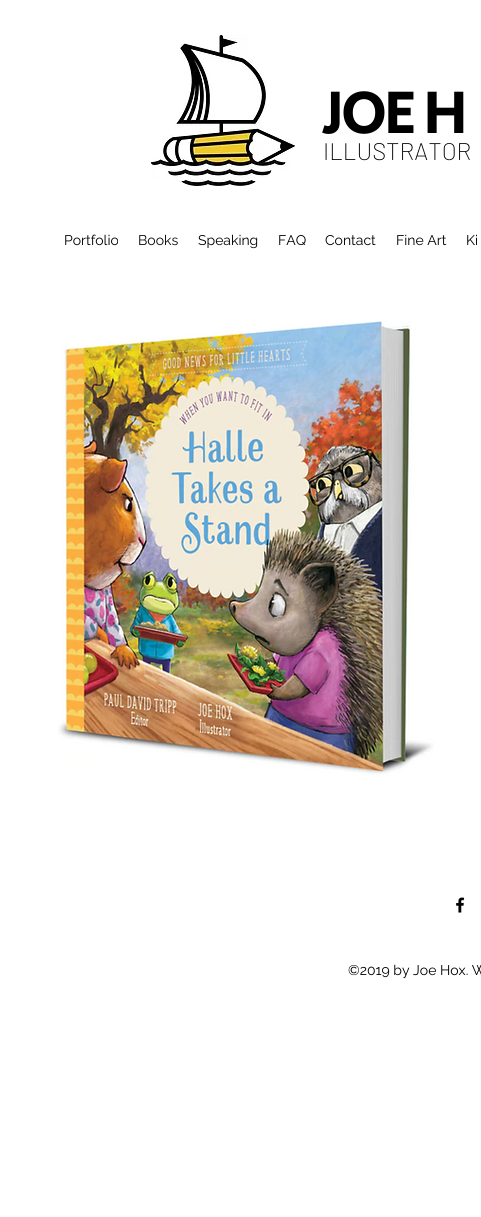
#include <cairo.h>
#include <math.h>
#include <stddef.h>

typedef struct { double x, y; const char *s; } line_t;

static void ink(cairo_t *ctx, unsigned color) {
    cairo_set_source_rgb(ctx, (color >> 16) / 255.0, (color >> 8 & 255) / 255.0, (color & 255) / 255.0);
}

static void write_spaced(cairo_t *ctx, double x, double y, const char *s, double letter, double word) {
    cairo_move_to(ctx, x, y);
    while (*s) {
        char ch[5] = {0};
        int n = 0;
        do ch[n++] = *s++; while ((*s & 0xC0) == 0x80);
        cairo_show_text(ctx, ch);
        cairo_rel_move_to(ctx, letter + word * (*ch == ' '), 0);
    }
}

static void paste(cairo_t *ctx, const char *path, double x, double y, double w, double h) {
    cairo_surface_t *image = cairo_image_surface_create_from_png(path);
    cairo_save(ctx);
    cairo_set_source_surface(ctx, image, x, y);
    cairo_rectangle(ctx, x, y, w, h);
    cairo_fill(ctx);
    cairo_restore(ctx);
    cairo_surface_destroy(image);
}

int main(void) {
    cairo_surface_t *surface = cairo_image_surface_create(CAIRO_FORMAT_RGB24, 481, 1217);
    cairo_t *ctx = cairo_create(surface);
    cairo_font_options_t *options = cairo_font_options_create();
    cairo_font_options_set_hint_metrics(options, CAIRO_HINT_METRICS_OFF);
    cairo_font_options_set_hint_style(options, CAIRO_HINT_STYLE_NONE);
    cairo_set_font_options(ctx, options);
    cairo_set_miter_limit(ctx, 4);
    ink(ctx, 0xFFFFFF);
    cairo_paint(ctx);
    paste(ctx, "media/1.png", 151, 35, 144, 151);
    cairo_select_font_face(ctx, "Secular One", CAIRO_FONT_SLANT_NORMAL, CAIRO_FONT_WEIGHT_NORMAL);
    cairo_set_font_size(ctx, 62);
    ink(ctx, 0x000000);
    write_spaced(ctx, 323, 133, "JOE H", -3, 0);
    cairo_select_font_face(ctx, "Barlow ExtraLight", CAIRO_FONT_SLANT_NORMAL, CAIRO_FONT_WEIGHT_NORMAL);
    cairo_set_font_size(ctx, 24);
    cairo_move_to(ctx, 323, 160);
    cairo_show_text(ctx, "ILLUSTRATOR");
    cairo_select_font_face(ctx, "Raleway", CAIRO_FONT_SLANT_NORMAL, CAIRO_FONT_WEIGHT_NORMAL);
    cairo_set_font_size(ctx, 14);
    cairo_move_to(ctx, 64, 245);
    cairo_show_text(ctx, "Portfolio");
    ink(ctx, 0x080707);
    cairo_move_to(ctx, 138, 245);
    cairo_show_text(ctx, "Books");
    ink(ctx, 0x000000);
    {
        static const line_t items[] = {
            {198, 245, "Speaking"},
            {278, 245, "FAQ"},
            {325, 245, "Contact"},
            {396, 245, "Fine Art"},
            {466, 245, "Ki"},
        };
        for (size_t i = 0; i < sizeof items / sizeof *items; i++) {
            cairo_move_to(ctx, items[i].x, items[i].y);
            cairo_show_text(ctx, items[i].s);
        }
    }
    paste(ctx, "media/2.png", 58, 321, 376, 455);
    paste(ctx, "media/3.png", 456, 897, 9, 16);
    cairo_move_to(ctx, 348, 975);
    cairo_show_text(ctx, "©2019 by Joe Hox. W");
    cairo_surface_write_to_png(surface, "image.png");
    cairo_font_options_destroy(options);
    cairo_destroy(ctx);
    cairo_surface_destroy(surface);
    return 0;
}
